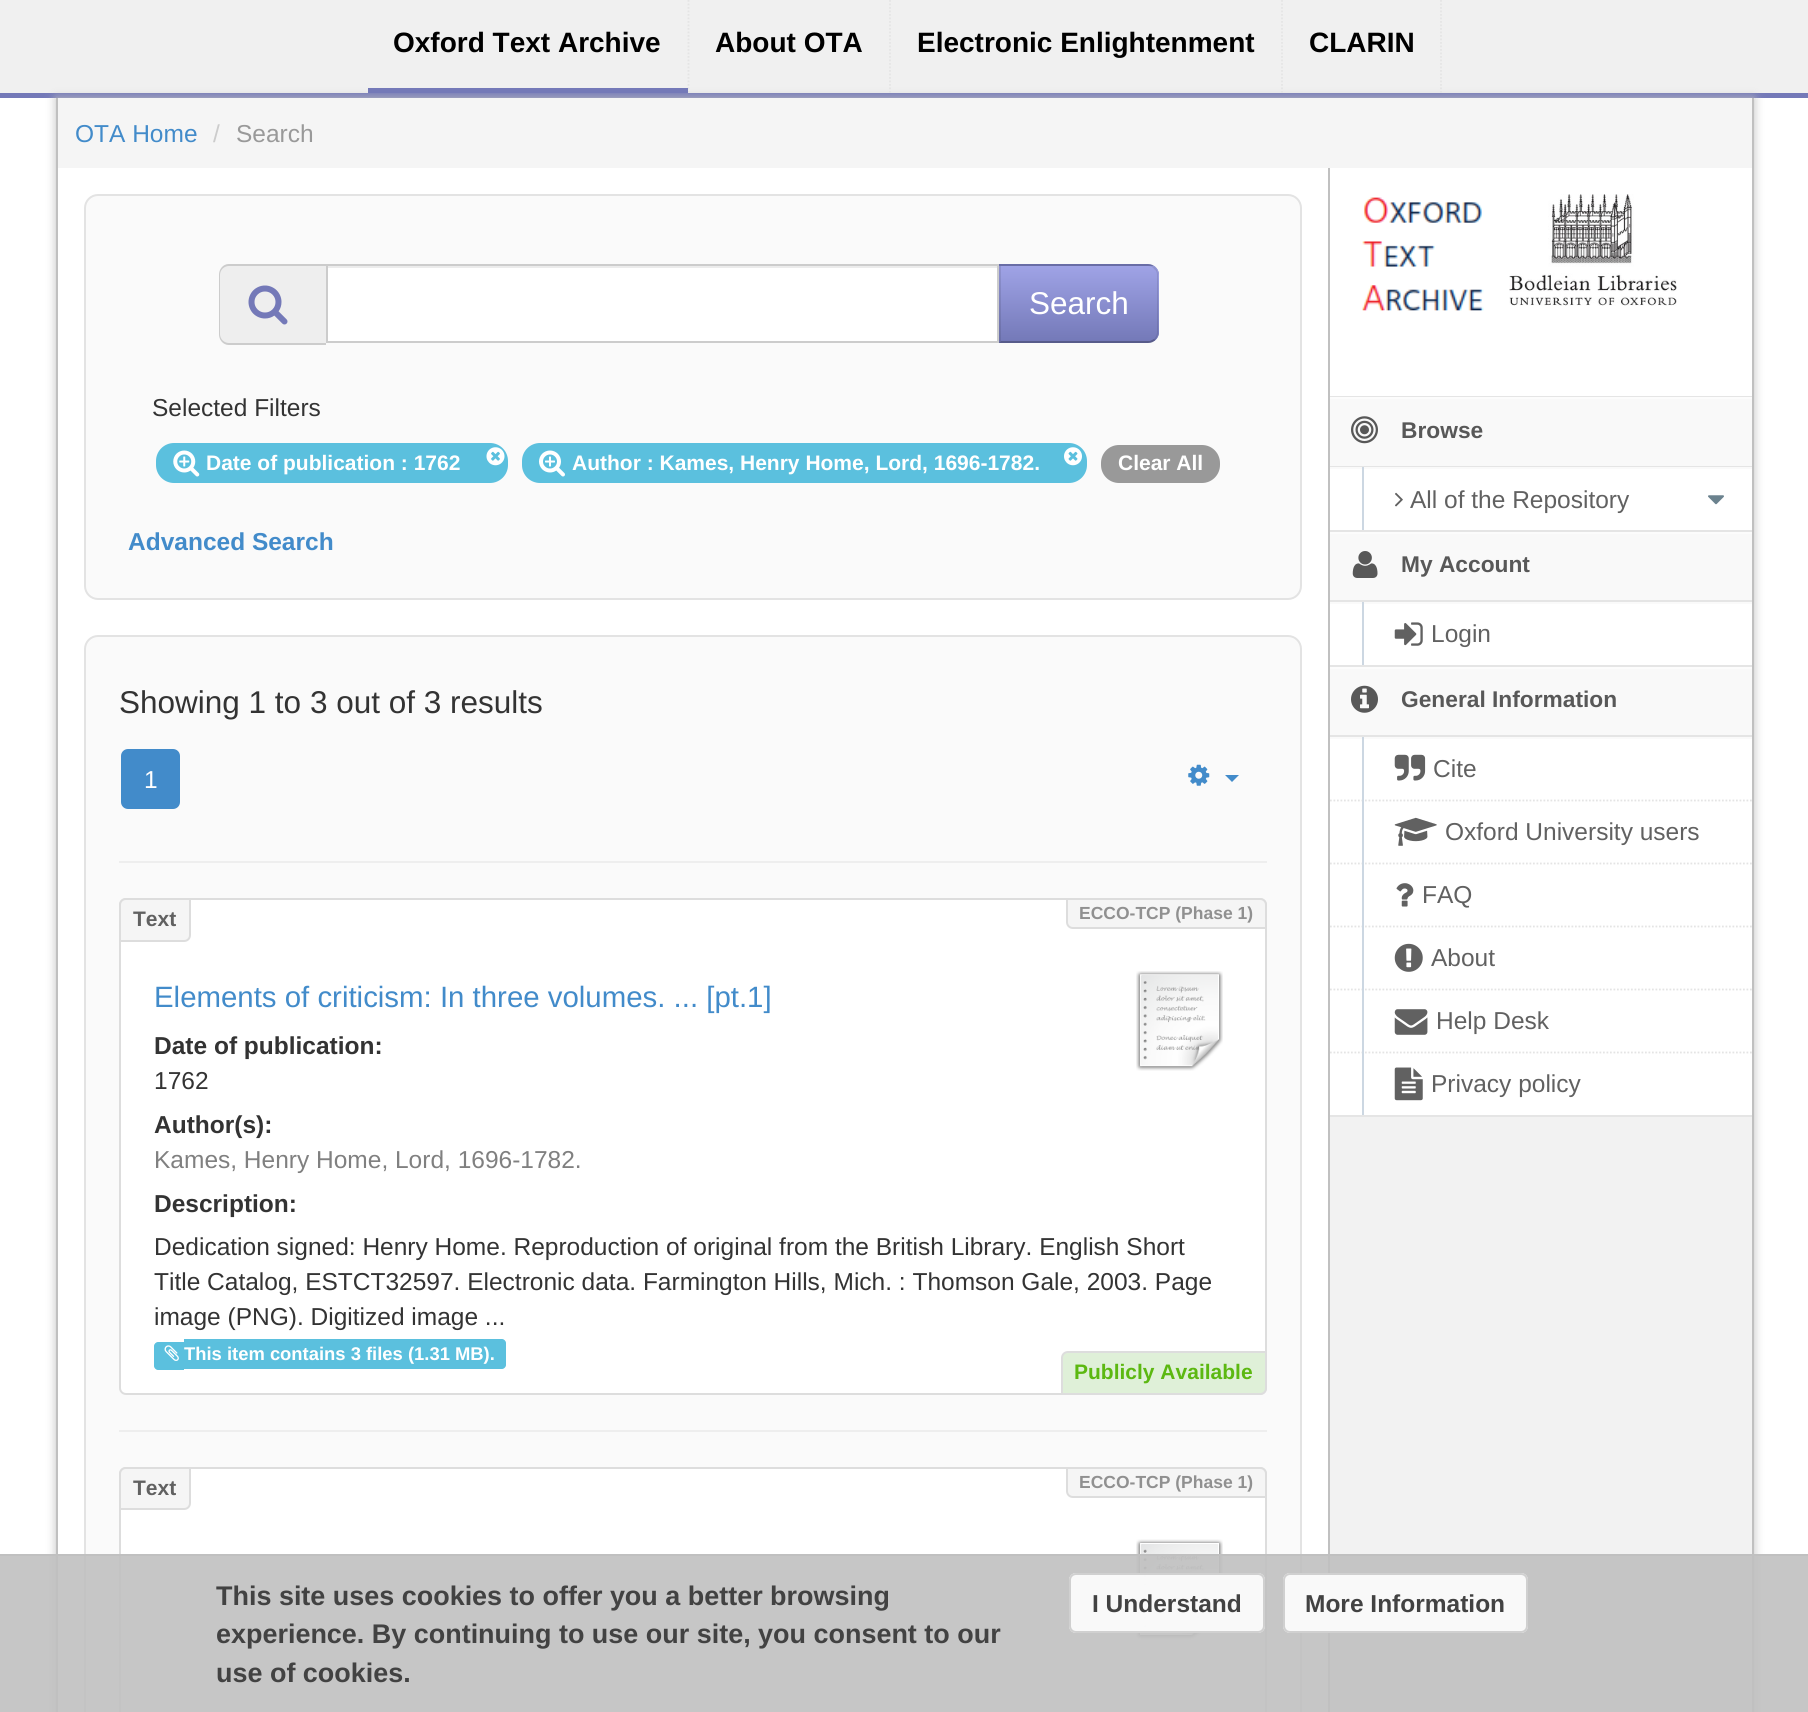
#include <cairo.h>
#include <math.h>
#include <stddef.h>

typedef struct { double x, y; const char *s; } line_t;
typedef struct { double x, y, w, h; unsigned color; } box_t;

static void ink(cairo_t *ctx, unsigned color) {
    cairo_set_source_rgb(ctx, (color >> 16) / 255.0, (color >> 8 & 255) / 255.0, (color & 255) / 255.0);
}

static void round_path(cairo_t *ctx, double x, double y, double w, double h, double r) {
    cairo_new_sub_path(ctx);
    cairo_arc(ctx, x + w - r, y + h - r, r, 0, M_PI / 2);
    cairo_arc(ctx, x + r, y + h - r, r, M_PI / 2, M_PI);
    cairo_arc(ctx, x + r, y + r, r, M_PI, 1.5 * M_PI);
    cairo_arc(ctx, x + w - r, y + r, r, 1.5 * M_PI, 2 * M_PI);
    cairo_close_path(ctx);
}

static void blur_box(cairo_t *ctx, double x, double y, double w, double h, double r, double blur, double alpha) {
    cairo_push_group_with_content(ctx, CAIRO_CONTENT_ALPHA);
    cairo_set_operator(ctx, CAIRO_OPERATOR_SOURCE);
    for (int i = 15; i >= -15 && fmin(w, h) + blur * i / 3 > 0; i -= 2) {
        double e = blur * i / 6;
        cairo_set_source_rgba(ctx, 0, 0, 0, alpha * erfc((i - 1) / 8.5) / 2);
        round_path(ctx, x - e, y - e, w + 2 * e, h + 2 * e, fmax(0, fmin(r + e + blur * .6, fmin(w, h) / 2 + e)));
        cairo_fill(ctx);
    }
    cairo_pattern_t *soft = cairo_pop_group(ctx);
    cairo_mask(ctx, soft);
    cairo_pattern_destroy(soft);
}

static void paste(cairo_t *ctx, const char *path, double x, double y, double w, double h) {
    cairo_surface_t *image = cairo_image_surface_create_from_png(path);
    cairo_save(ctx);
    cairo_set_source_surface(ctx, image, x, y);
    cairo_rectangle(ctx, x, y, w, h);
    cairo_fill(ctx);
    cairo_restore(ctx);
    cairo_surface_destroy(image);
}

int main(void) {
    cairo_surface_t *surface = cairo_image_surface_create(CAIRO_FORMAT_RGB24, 1808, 1712);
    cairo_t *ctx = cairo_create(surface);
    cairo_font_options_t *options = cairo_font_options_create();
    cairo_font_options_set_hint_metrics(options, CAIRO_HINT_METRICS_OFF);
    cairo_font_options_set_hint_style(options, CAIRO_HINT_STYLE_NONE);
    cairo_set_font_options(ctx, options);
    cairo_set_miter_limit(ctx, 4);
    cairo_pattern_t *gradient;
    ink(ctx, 0xFFFFFF);
    cairo_paint(ctx);
    ink(ctx, 0xF0F0F0);
    cairo_rectangle(ctx, 0, 0, 1808, 93);
    cairo_fill(ctx);
    ink(ctx, 0x7479B8);
    cairo_rectangle(ctx, 0, 93, 1808, 5);
    cairo_fill(ctx);
    ink(ctx, 0xC0C0C0);
    blur_box(ctx, 56, 98, 1698, 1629, 0, 5, 1);
    cairo_new_path(ctx);
    cairo_move_to(ctx, 688.5, 0);
    cairo_line_to(ctx, 688.5, 93);
    ink(ctx, 0xE4E4E4);
    cairo_set_line_width(ctx, 1.8);
    cairo_set_dash(ctx, (double[]){1.75, 1.75}, 2, 0);
    cairo_stroke(ctx);
    ink(ctx, 0x7479B8);
    cairo_rectangle(ctx, 368, 88, 320, 5);
    cairo_fill(ctx);
    cairo_select_font_face(ctx, "Liberation Sans", CAIRO_FONT_SLANT_NORMAL, CAIRO_FONT_WEIGHT_BOLD);
    cairo_set_font_size(ctx, 28);
    ink(ctx, 0x000000);
    cairo_move_to(ctx, 393, 52);
    cairo_show_text(ctx, "Oxford Text Archive");
    cairo_new_path(ctx);
    cairo_move_to(ctx, 890, 0);
    cairo_line_to(ctx, 890, 93);
    ink(ctx, 0xE4E4E4);
    cairo_stroke(ctx);
    ink(ctx, 0x000000);
    cairo_move_to(ctx, 715, 52);
    cairo_show_text(ctx, "About OTA");
    cairo_new_path(ctx);
    cairo_move_to(ctx, 1282, 0);
    cairo_line_to(ctx, 1282, 93);
    ink(ctx, 0xE4E4E4);
    cairo_stroke(ctx);
    ink(ctx, 0x000000);
    cairo_move_to(ctx, 917, 52);
    cairo_show_text(ctx, "Electronic Enlightenment");
    cairo_new_path(ctx);
    cairo_move_to(ctx, 1441, 0);
    cairo_line_to(ctx, 1441, 93);
    ink(ctx, 0xE4E4E4);
    cairo_stroke(ctx);
    ink(ctx, 0x000000);
    cairo_move_to(ctx, 1309, 52);
    cairo_show_text(ctx, "CLARIN");
    {
        static const box_t items[] = {
            {58, 168, 1270, 1544, 0xFFFFFF},
            {1752, 98, 2, 1614, 0xC0C0C0},
            {56, 98, 2, 1614, 0xC0C0C0},
            {58, 98, 1694, 70, 0xF5F5F5},
        };
        for (size_t i = 0; i < sizeof items / sizeof *items; i++) {
            ink(ctx, items[i].color);
            cairo_rectangle(ctx, items[i].x, items[i].y, items[i].w, items[i].h);
            cairo_fill(ctx);
        }
    }
    cairo_select_font_face(ctx, "Liberation Sans", CAIRO_FONT_SLANT_NORMAL, CAIRO_FONT_WEIGHT_NORMAL);
    cairo_set_font_size(ctx, 24.5);
    ink(ctx, 0x428BCA);
    cairo_move_to(ctx, 75, 142);
    cairo_show_text(ctx, "OTA Home");
    ink(ctx, 0xCCCCCC);
    cairo_move_to(ctx, 213, 142);
    cairo_show_text(ctx, "/");
    ink(ctx, 0x999999);
    cairo_move_to(ctx, 236, 142);
    cairo_show_text(ctx, "Search");
    ink(ctx, 0xFAFAFA);
    round_path(ctx, 85, 195, 1216, 404, 13);
    cairo_fill_preserve(ctx);
    ink(ctx, 0xE3E3E3);
    cairo_set_line_width(ctx, 2);
    cairo_set_dash(ctx, NULL, 0, 0);
    cairo_stroke(ctx);
    ink(ctx, 0xEEEEEE);
    cairo_new_path(ctx);
    cairo_move_to(ctx, 230, 264);
    cairo_line_to(ctx, 326, 264);
    cairo_line_to(ctx, 326, 345);
    cairo_line_to(ctx, 230, 345);
    cairo_curve_to(ctx, 224, 345, 219, 340, 219, 334);
    cairo_line_to(ctx, 219, 275);
    cairo_curve_to(ctx, 219, 269, 224, 264, 230, 264);
    cairo_close_path(ctx);
    cairo_fill(ctx);
    ink(ctx, 0xCCCCCC);
    cairo_set_fill_rule(ctx, CAIRO_FILL_RULE_EVEN_ODD);
    cairo_new_path(ctx);
    cairo_move_to(ctx, 229, 264);
    cairo_line_to(ctx, 326, 264);
    cairo_line_to(ctx, 326, 345);
    cairo_line_to(ctx, 229, 345);
    cairo_curve_to(ctx, 223, 345, 219, 340, 219, 334);
    cairo_line_to(ctx, 219, 275);
    cairo_curve_to(ctx, 219, 269, 223, 264, 229, 264);
    cairo_close_path(ctx);
    cairo_move_to(ctx, 229, 266);
    cairo_line_to(ctx, 326, 266);
    cairo_line_to(ctx, 326, 343);
    cairo_line_to(ctx, 229, 343);
    cairo_curve_to(ctx, 224, 343, 220, 339, 220, 334);
    cairo_line_to(ctx, 220, 275);
    cairo_curve_to(ctx, 220, 270, 224, 266, 229, 266);
    cairo_close_path(ctx);
    cairo_fill(ctx);
    paste(ctx, "media/1.png", 248, 285, 40, 40);
    ink(ctx, 0xFFFFFF);
    cairo_rectangle(ctx, 328, 268, 669, 73);
    cairo_fill(ctx);
    ink(ctx, 0xECECEC);
    cairo_rectangle(ctx, 327, 266, 671, 2);
    cairo_fill(ctx);
    cairo_rectangle(ctx, 327, 265, 671, 77);
    ink(ctx, 0xCCCCCC);
    cairo_stroke(ctx);
    ink(ctx, 0x7479B8);
    cairo_new_path(ctx);
    cairo_move_to(ctx, 999, 264);
    cairo_line_to(ctx, 1148, 264);
    cairo_curve_to(ctx, 1154, 264, 1159, 269, 1159, 275);
    cairo_line_to(ctx, 1159, 332);
    cairo_curve_to(ctx, 1159, 338, 1154, 343, 1148, 343);
    cairo_line_to(ctx, 999, 343);
    cairo_close_path(ctx);
    cairo_fill(ctx);
    cairo_save(ctx);
    cairo_set_fill_rule(ctx, CAIRO_FILL_RULE_WINDING);
    cairo_new_path(ctx);
    cairo_move_to(ctx, 999, 264);
    cairo_line_to(ctx, 1148, 264);
    cairo_curve_to(ctx, 1154, 264, 1159, 269, 1159, 275);
    cairo_line_to(ctx, 1159, 332);
    cairo_curve_to(ctx, 1159, 338, 1154, 343, 1148, 343);
    cairo_line_to(ctx, 999, 343);
    cairo_close_path(ctx);
    cairo_clip(ctx);
    gradient = cairo_pattern_create_linear(1079, 266, 1079, 341);
    cairo_pattern_add_color_stop_rgba(gradient, 0, 0.624, 0.639, 0.902, 1);
    cairo_pattern_add_color_stop_rgba(gradient, 1, 0.455, 0.475, 0.722, 1);
    cairo_set_source(ctx, gradient);
    cairo_pattern_destroy(gradient);
    cairo_rectangle(ctx, 999, 266, 160, 75);
    cairo_fill(ctx);
    cairo_restore(ctx);
    cairo_set_source_rgba(ctx, 0, 0, 0, 0.1);
    cairo_set_fill_rule(ctx, CAIRO_FILL_RULE_WINDING);
    cairo_new_path(ctx);
    cairo_move_to(ctx, 1001, 266);
    cairo_line_to(ctx, 999, 264);
    cairo_line_to(ctx, 1150, 264);
    cairo_curve_to(ctx, 1152, 265, 1154, 266, 1155, 267);
    cairo_line_to(ctx, 1154, 269);
    cairo_curve_to(ctx, 1153, 267, 1150, 266, 1148, 266);
    cairo_close_path(ctx);
    cairo_fill(ctx);
    cairo_new_path(ctx);
    cairo_move_to(ctx, 1155, 267);
    cairo_curve_to(ctx, 1157, 269, 1158, 272, 1158, 275);
    cairo_line_to(ctx, 1158, 332);
    cairo_curve_to(ctx, 1158, 335, 1157, 338, 1155, 340);
    cairo_line_to(ctx, 1154, 339);
    cairo_curve_to(ctx, 1156, 337, 1157, 335, 1157, 332);
    cairo_line_to(ctx, 1157, 275);
    cairo_curve_to(ctx, 1157, 272, 1156, 270, 1154, 269);
    cairo_close_path(ctx);
    cairo_fill(ctx);
    cairo_set_source_rgba(ctx, 0, 0, 0, 0.25);
    cairo_new_path(ctx);
    cairo_move_to(ctx, 999, 343);
    cairo_line_to(ctx, 1148, 343);
    cairo_curve_to(ctx, 1151, 343, 1154, 342, 1155, 340);
    cairo_line_to(ctx, 1154, 339);
    cairo_line_to(ctx, 1150, 341);
    cairo_line_to(ctx, 1001, 341);
    cairo_close_path(ctx);
    cairo_fill(ctx);
    cairo_set_source_rgba(ctx, 0, 0, 0, 0.1);
    cairo_new_path(ctx);
    cairo_move_to(ctx, 1001, 266);
    cairo_line_to(ctx, 999, 264);
    cairo_line_to(ctx, 999, 343);
    cairo_line_to(ctx, 1001, 341);
    cairo_close_path(ctx);
    cairo_fill(ctx);
    cairo_set_font_size(ctx, 31.5);
    ink(ctx, 0xFFFFFF);
    cairo_move_to(ctx, 1029, 314);
    cairo_show_text(ctx, "Search");
    cairo_set_font_size(ctx, 24.5);
    ink(ctx, 0x333333);
    cairo_move_to(ctx, 152, 416);
    cairo_show_text(ctx, "Selected Filters");
    ink(ctx, 0x5BC0DE);
    round_path(ctx, 156, 443, 352, 40, 18);
    cairo_fill(ctx);
    paste(ctx, "media/2.png", 173, 450, 27, 27);
    cairo_select_font_face(ctx, "Liberation Sans", CAIRO_FONT_SLANT_NORMAL, CAIRO_FONT_WEIGHT_BOLD);
    cairo_set_font_size(ctx, 21);
    ink(ctx, 0xFFFFFF);
    cairo_move_to(ctx, 206, 470);
    cairo_show_text(ctx, "Date of publication : 1762");
    paste(ctx, "media/3.png", 486, 447, 19, 19);
    ink(ctx, 0x5BC0DE);
    round_path(ctx, 522, 443, 565, 40, 18);
    cairo_fill(ctx);
    paste(ctx, "media/4.png", 539, 450, 26, 27);
    ink(ctx, 0xFFFFFF);
    cairo_move_to(ctx, 572, 470);
    cairo_show_text(ctx, "Author : Kames, Henry Home, Lord, 1696-1782.");
    paste(ctx, "media/5.png", 1064, 447, 18, 19);
    ink(ctx, 0x999999);
    round_path(ctx, 1101, 445, 119, 38, 18);
    cairo_fill(ctx);
    ink(ctx, 0xFFFFFF);
    cairo_move_to(ctx, 1118, 470);
    cairo_show_text(ctx, "Clear All");
    cairo_set_font_size(ctx, 24.5);
    ink(ctx, 0x428BCA);
    cairo_move_to(ctx, 128, 550);
    cairo_show_text(ctx, "Advanced Search");
    ink(ctx, 0xFAFAFA);
    round_path(ctx, 85, 636, 1216, 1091, 13);
    cairo_fill_preserve(ctx);
    ink(ctx, 0xE3E3E3);
    cairo_stroke(ctx);
    cairo_select_font_face(ctx, "Liberation Sans", CAIRO_FONT_SLANT_NORMAL, CAIRO_FONT_WEIGHT_NORMAL);
    cairo_set_font_size(ctx, 31.5);
    ink(ctx, 0x333333);
    cairo_move_to(ctx, 119, 713);
    cairo_show_text(ctx, "Showing 1 to 3 out of 3 results");
    ink(ctx, 0x428BCA);
    round_path(ctx, 122, 750, 57, 58, 6);
    cairo_fill_preserve(ctx);
    cairo_stroke(ctx);
    cairo_set_font_size(ctx, 24.5);
    ink(ctx, 0xFFFFFF);
    cairo_move_to(ctx, 144, 788);
    cairo_show_text(ctx, "1");
    paste(ctx, "media/6.png", 1188, 764, 22, 22);
    ink(ctx, 0x428BCA);
    cairo_new_path(ctx);
    cairo_move_to(ctx, 1225, 775);
    cairo_line_to(ctx, 1239, 775);
    cairo_line_to(ctx, 1232, 782);
    cairo_close_path(ctx);
    cairo_fill(ctx);
    ink(ctx, 0xEEEEEE);
    cairo_rectangle(ctx, 119, 861, 1148, 2);
    cairo_fill(ctx);
    ink(ctx, 0xFFFFFF);
    round_path(ctx, 120, 899, 1146, 495, 6);
    cairo_fill_preserve(ctx);
    ink(ctx, 0xDDDDDD);
    cairo_stroke(ctx);
    ink(ctx, 0xF5F5F5);
    cairo_new_path(ctx);
    cairo_move_to(ctx, 126, 899);
    cairo_line_to(ctx, 190, 899);
    cairo_line_to(ctx, 190, 935);
    cairo_curve_to(ctx, 190, 938.5, 187.5, 941, 184, 941);
    cairo_line_to(ctx, 120, 941);
    cairo_line_to(ctx, 120, 905);
    cairo_curve_to(ctx, 120, 901.5, 122.5, 899, 126, 899);
    cairo_close_path(ctx);
    cairo_fill_preserve(ctx);
    ink(ctx, 0xDDDDDD);
    cairo_stroke(ctx);
    cairo_select_font_face(ctx, "Liberation Sans", CAIRO_FONT_SLANT_NORMAL, CAIRO_FONT_WEIGHT_BOLD);
    cairo_set_font_size(ctx, 21);
    ink(ctx, 0x616161);
    cairo_move_to(ctx, 133, 926);
    cairo_show_text(ctx, "Text");
    ink(ctx, 0xF5F5F5);
    cairo_new_path(ctx);
    cairo_move_to(ctx, 1067, 899);
    cairo_line_to(ctx, 1260, 899);
    cairo_curve_to(ctx, 1263.5, 899, 1266, 901.5, 1266, 905);
    cairo_line_to(ctx, 1266, 928);
    cairo_line_to(ctx, 1073, 928);
    cairo_curve_to(ctx, 1069.5, 928, 1067, 925.5, 1067, 922);
    cairo_close_path(ctx);
    cairo_fill_preserve(ctx);
    ink(ctx, 0xDDDDDD);
    cairo_stroke(ctx);
    cairo_set_font_size(ctx, 17.5);
    ink(ctx, 0x909090);
    cairo_move_to(ctx, 1079, 919);
    cairo_show_text(ctx, "ECCO-TCP (Phase 1)");
    cairo_select_font_face(ctx, "Liberation Sans", CAIRO_FONT_SLANT_NORMAL, CAIRO_FONT_WEIGHT_NORMAL);
    cairo_set_font_size(ctx, 29.4);
    ink(ctx, 0x428BCA);
    cairo_move_to(ctx, 154, 1007);
    cairo_show_text(ctx, "Elements of criticism: In three volumes. ... [pt.1]");
    paste(ctx, "media/7.png", 1136, 971, 87, 100);
    cairo_select_font_face(ctx, "Liberation Sans", CAIRO_FONT_SLANT_NORMAL, CAIRO_FONT_WEIGHT_BOLD);
    cairo_set_font_size(ctx, 24.5);
    ink(ctx, 0x333333);
    cairo_move_to(ctx, 154, 1054);
    cairo_show_text(ctx, "Date of publication:");
    cairo_select_font_face(ctx, "Liberation Sans", CAIRO_FONT_SLANT_NORMAL, CAIRO_FONT_WEIGHT_NORMAL);
    cairo_move_to(ctx, 154, 1089);
    cairo_show_text(ctx, "1762");
    cairo_select_font_face(ctx, "Liberation Sans", CAIRO_FONT_SLANT_NORMAL, CAIRO_FONT_WEIGHT_BOLD);
    cairo_move_to(ctx, 154, 1133);
    cairo_show_text(ctx, "Author(s):");
    cairo_select_font_face(ctx, "Liberation Sans", CAIRO_FONT_SLANT_NORMAL, CAIRO_FONT_WEIGHT_NORMAL);
    ink(ctx, 0x808080);
    cairo_move_to(ctx, 154, 1168);
    cairo_show_text(ctx, "Kames, Henry Home, Lord, 1696-1782.");
    cairo_select_font_face(ctx, "Liberation Sans", CAIRO_FONT_SLANT_NORMAL, CAIRO_FONT_WEIGHT_BOLD);
    ink(ctx, 0x333333);
    cairo_move_to(ctx, 154, 1212);
    cairo_show_text(ctx, "Description:");
    cairo_select_font_face(ctx, "Liberation Sans", CAIRO_FONT_SLANT_NORMAL, CAIRO_FONT_WEIGHT_NORMAL);
    {
        static const line_t items[] = {
            {154, 1255, "Dedication signed: Henry Home. Reproduction of original from the British Library. English Short"},
            {154, 1290, "Title Catalog, ESTCT32597. Electronic data. Farmington Hills, Mich. : Thomson Gale, 2003. Page"},
            {154, 1325, "image (PNG). Digitized image ..."},
        };
        for (size_t i = 0; i < sizeof items / sizeof *items; i++) {
            cairo_move_to(ctx, items[i].x, items[i].y);
            cairo_show_text(ctx, items[i].s);
        }
    }
    ink(ctx, 0x5BC0DE);
    cairo_new_path(ctx);
    cairo_move_to(ctx, 158, 1342);
    cairo_line_to(ctx, 184, 1342);
    cairo_line_to(ctx, 184, 1370);
    cairo_line_to(ctx, 158, 1370);
    cairo_curve_to(ctx, 156, 1370, 154, 1368, 154, 1366);
    cairo_line_to(ctx, 154, 1346);
    cairo_curve_to(ctx, 154, 1344, 156, 1342, 158, 1342);
    cairo_close_path(ctx);
    cairo_fill(ctx);
    cairo_new_path(ctx);
    cairo_move_to(ctx, 184, 1339);
    cairo_line_to(ctx, 502, 1339);
    cairo_curve_to(ctx, 504, 1339, 506, 1341, 506, 1343);
    cairo_line_to(ctx, 506, 1365);
    cairo_curve_to(ctx, 506, 1367, 504, 1369, 502, 1369);
    cairo_line_to(ctx, 184, 1369);
    cairo_close_path(ctx);
    cairo_fill(ctx);
    paste(ctx, "media/8.png", 164, 1345, 15, 16);
    cairo_select_font_face(ctx, "Liberation Sans", CAIRO_FONT_SLANT_NORMAL, CAIRO_FONT_WEIGHT_BOLD);
    cairo_set_font_size(ctx, 18.4);
    ink(ctx, 0xFFFFFF);
    cairo_move_to(ctx, 184, 1360);
    cairo_show_text(ctx, "This item contains 3 files (1.31 MB).");
    ink(ctx, 0xDFF0D8);
    cairo_new_path(ctx);
    cairo_move_to(ctx, 1068, 1352);
    cairo_line_to(ctx, 1266, 1352);
    cairo_line_to(ctx, 1266, 1388);
    cairo_curve_to(ctx, 1266, 1391.5, 1263.5, 1394, 1260, 1394);
    cairo_line_to(ctx, 1062, 1394);
    cairo_line_to(ctx, 1062, 1358);
    cairo_curve_to(ctx, 1062, 1354.5, 1064.5, 1352, 1068, 1352);
    cairo_close_path(ctx);
    cairo_fill_preserve(ctx);
    ink(ctx, 0xDDDDDD);
    cairo_stroke(ctx);
    cairo_set_font_size(ctx, 21);
    ink(ctx, 0x5CB811);
    cairo_move_to(ctx, 1074, 1379);
    cairo_show_text(ctx, "Publicly Available");
    ink(ctx, 0xEEEEEE);
    cairo_rectangle(ctx, 119, 1430, 1148, 2);
    cairo_fill(ctx);
    ink(ctx, 0xFFFFFF);
    round_path(ctx, 120, 1468, 1146, 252, 6);
    cairo_fill_preserve(ctx);
    ink(ctx, 0xDDDDDD);
    cairo_stroke(ctx);
    ink(ctx, 0xF5F5F5);
    cairo_new_path(ctx);
    cairo_move_to(ctx, 126, 1468);
    cairo_line_to(ctx, 190, 1468);
    cairo_line_to(ctx, 190, 1503);
    cairo_curve_to(ctx, 190, 1506.5, 187.5, 1509, 184, 1509);
    cairo_line_to(ctx, 120, 1509);
    cairo_line_to(ctx, 120, 1474);
    cairo_curve_to(ctx, 120, 1470.5, 122.5, 1468, 126, 1468);
    cairo_close_path(ctx);
    cairo_fill_preserve(ctx);
    ink(ctx, 0xDDDDDD);
    cairo_stroke(ctx);
    ink(ctx, 0x616161);
    cairo_move_to(ctx, 133, 1495);
    cairo_show_text(ctx, "Text");
    ink(ctx, 0xF5F5F5);
    cairo_new_path(ctx);
    cairo_move_to(ctx, 1067, 1468);
    cairo_line_to(ctx, 1260, 1468);
    cairo_curve_to(ctx, 1263.5, 1468, 1266, 1470.5, 1266, 1474);
    cairo_line_to(ctx, 1266, 1497);
    cairo_line_to(ctx, 1073, 1497);
    cairo_curve_to(ctx, 1069.5, 1497, 1067, 1494.5, 1067, 1491);
    cairo_close_path(ctx);
    cairo_fill_preserve(ctx);
    ink(ctx, 0xDDDDDD);
    cairo_stroke(ctx);
    cairo_set_font_size(ctx, 17.5);
    ink(ctx, 0x909090);
    cairo_move_to(ctx, 1079, 1488);
    cairo_show_text(ctx, "ECCO-TCP (Phase 1)");
    paste(ctx, "media/9.png", 1136, 1539, 87, 101);
    ink(ctx, 0xE5E5E5);
    cairo_rectangle(ctx, 1330, 396, 422, 1);
    cairo_fill(ctx);
    ink(ctx, 0xFFFFFF);
    cairo_rectangle(ctx, 1330, 168, 422, 228);
    cairo_fill(ctx);
    paste(ctx, "media/10.png", 1362, 197, 122, 114);
    paste(ctx, "media/11.png", 1509, 194, 168, 112);
    {
        static const box_t items[] = {
            {1330, 397, 422, 2, 0xFCFCFC},
            {1330, 530, 422, 2, 0xE5E5E5},
            {1330, 399, 422, 67, 0xF9F9F9},
        };
        for (size_t i = 0; i < sizeof items / sizeof *items; i++) {
            ink(ctx, items[i].color);
            cairo_rectangle(ctx, items[i].x, items[i].y, items[i].w, items[i].h);
            cairo_fill(ctx);
        }
    }
    paste(ctx, "media/12.png", 1351, 416, 27, 28);
    cairo_set_font_size(ctx, 22.75);
    ink(ctx, 0x585858);
    cairo_move_to(ctx, 1401, 438);
    cairo_show_text(ctx, "Browse");
    {
        static const box_t items[] = {
            {1330, 469, 422, 61, 0xFFFFFF},
            {1330, 466, 422, 1, 0xE5E5E5},
            {1330, 467, 422, 2, 0xFAFAFA},
            {1362, 467, 2, 63, 0xCCD7E2},
        };
        for (size_t i = 0; i < sizeof items / sizeof *items; i++) {
            ink(ctx, items[i].color);
            cairo_rectangle(ctx, items[i].x, items[i].y, items[i].w, items[i].h);
            cairo_fill(ctx);
        }
    }
    paste(ctx, "media/13.png", 1395, 492, 8, 15);
    cairo_select_font_face(ctx, "Liberation Sans", CAIRO_FONT_SLANT_NORMAL, CAIRO_FONT_WEIGHT_NORMAL);
    cairo_set_font_size(ctx, 24.5);
    ink(ctx, 0x616161);
    cairo_move_to(ctx, 1410, 508);
    cairo_show_text(ctx, "All of the Repository");
    paste(ctx, "media/14.png", 1708, 495, 16, 10);
    {
        static const box_t items[] = {
            {1330, 532, 422, 2, 0xFCFCFC},
            {1330, 665, 422, 2, 0xE5E5E5},
            {1330, 534, 422, 66, 0xF9F9F9},
        };
        for (size_t i = 0; i < sizeof items / sizeof *items; i++) {
            ink(ctx, items[i].color);
            cairo_rectangle(ctx, items[i].x, items[i].y, items[i].w, items[i].h);
            cairo_fill(ctx);
        }
    }
    paste(ctx, "media/15.png", 1352, 551, 26, 27);
    cairo_select_font_face(ctx, "Liberation Sans", CAIRO_FONT_SLANT_NORMAL, CAIRO_FONT_WEIGHT_BOLD);
    cairo_set_font_size(ctx, 22.75);
    ink(ctx, 0x585858);
    cairo_move_to(ctx, 1401, 572);
    cairo_show_text(ctx, "My Account");
    {
        static const box_t items[] = {
            {1330, 604, 422, 61, 0xFFFFFF},
            {1330, 600, 422, 2, 0xE5E5E5},
            {1330, 602, 422, 2, 0xFAFAFA},
            {1362, 602, 2, 63, 0xCCD7E2},
        };
        for (size_t i = 0; i < sizeof items / sizeof *items; i++) {
            ink(ctx, items[i].color);
            cairo_rectangle(ctx, items[i].x, items[i].y, items[i].w, items[i].h);
            cairo_fill(ctx);
        }
    }
    paste(ctx, "media/16.png", 1394, 622, 29, 24);
    cairo_select_font_face(ctx, "Liberation Sans", CAIRO_FONT_SLANT_NORMAL, CAIRO_FONT_WEIGHT_NORMAL);
    cairo_set_font_size(ctx, 24.5);
    ink(ctx, 0x616161);
    cairo_move_to(ctx, 1431, 642);
    cairo_show_text(ctx, "Login");
    {
        static const box_t items[] = {
            {1330, 667, 422, 2, 0xFCFCFC},
            {1330, 1115, 422, 2, 0xE5E5E5},
            {1330, 669, 422, 66, 0xF9F9F9},
        };
        for (size_t i = 0; i < sizeof items / sizeof *items; i++) {
            ink(ctx, items[i].color);
            cairo_rectangle(ctx, items[i].x, items[i].y, items[i].w, items[i].h);
            cairo_fill(ctx);
        }
    }
    paste(ctx, "media/17.png", 1351, 685, 27, 28);
    cairo_select_font_face(ctx, "Liberation Sans", CAIRO_FONT_SLANT_NORMAL, CAIRO_FONT_WEIGHT_BOLD);
    cairo_set_font_size(ctx, 22.75);
    ink(ctx, 0x585858);
    cairo_move_to(ctx, 1401, 707);
    cairo_show_text(ctx, "General Information");
    {
        static const box_t items[] = {
            {1330, 739, 422, 376, 0xFFFFFF},
            {1330, 735, 422, 2, 0xE5E5E5},
            {1330, 737, 422, 2, 0xFAFAFA},
        };
        for (size_t i = 0; i < sizeof items / sizeof *items; i++) {
            ink(ctx, items[i].color);
            cairo_rectangle(ctx, items[i].x, items[i].y, items[i].w, items[i].h);
            cairo_fill(ctx);
        }
    }
    cairo_new_path(ctx);
    cairo_move_to(ctx, 1330, 800.5);
    cairo_line_to(ctx, 1752, 800.5);
    ink(ctx, 0xE4E4E4);
    cairo_set_line_width(ctx, 1.8);
    cairo_set_dash(ctx, (double[]){1.75, 1.75}, 2, 0);
    cairo_stroke(ctx);
    cairo_new_path(ctx);
    cairo_move_to(ctx, 1330, 863.5);
    cairo_line_to(ctx, 1752, 863.5);
    cairo_stroke(ctx);
    cairo_new_path(ctx);
    cairo_move_to(ctx, 1330, 926.5);
    cairo_line_to(ctx, 1752, 926.5);
    cairo_stroke(ctx);
    cairo_new_path(ctx);
    cairo_move_to(ctx, 1330, 989.5);
    cairo_line_to(ctx, 1752, 989.5);
    cairo_stroke(ctx);
    cairo_new_path(ctx);
    cairo_move_to(ctx, 1330, 1052.5);
    cairo_line_to(ctx, 1752, 1052.5);
    cairo_stroke(ctx);
    ink(ctx, 0xCCD7E2);
    cairo_rectangle(ctx, 1362, 737, 2, 378);
    cairo_fill(ctx);
    paste(ctx, "media/18.png", 1394, 754, 32, 27);
    cairo_select_font_face(ctx, "Liberation Sans", CAIRO_FONT_SLANT_NORMAL, CAIRO_FONT_WEIGHT_NORMAL);
    cairo_set_font_size(ctx, 24.5);
    ink(ctx, 0x616161);
    cairo_move_to(ctx, 1433, 777);
    cairo_show_text(ctx, "Cite");
    paste(ctx, "media/19.png", 1394, 817, 43, 29);
    cairo_move_to(ctx, 1445, 840);
    cairo_show_text(ctx, "Oxford University users");
    paste(ctx, "media/20.png", 1396, 883, 18, 24);
    cairo_move_to(ctx, 1422, 903);
    cairo_show_text(ctx, "FAQ");
    paste(ctx, "media/21.png", 1394, 943, 29, 29);
    cairo_move_to(ctx, 1431, 966);
    cairo_show_text(ctx, "About");
    paste(ctx, "media/22.png", 1394, 1009, 34, 26);
    cairo_move_to(ctx, 1436, 1029);
    cairo_show_text(ctx, "Help Desk");
    paste(ctx, "media/23.png", 1394, 1067, 29, 34);
    cairo_move_to(ctx, 1431, 1092);
    cairo_show_text(ctx, "Privacy policy");
    ink(ctx, 0xF2F2F2);
    cairo_rectangle(ctx, 1330, 1117, 422, 595);
    cairo_fill(ctx);
    cairo_set_source_rgba(ctx, 0.753, 0.753, 0.753, 0.9);
    cairo_rectangle(ctx, 0, 1554, 1808, 158);
    cairo_fill(ctx);
    cairo_rectangle(ctx, 0, 1554, 1808, 2);
    cairo_fill(ctx);
    cairo_select_font_face(ctx, "Liberation Sans", CAIRO_FONT_SLANT_NORMAL, CAIRO_FONT_WEIGHT_BOLD);
    cairo_set_font_size(ctx, 26.95);
    ink(ctx, 0x424242);
    {
        static const line_t items[] = {
            {216, 1605, "This site uses cookies to offer you a better browsing"},
            {216, 1643, "experience. By continuing to use our site, you consent to our"},
            {216, 1682, "use of cookies."},
        };
        for (size_t i = 0; i < sizeof items / sizeof *items; i++) {
            cairo_move_to(ctx, items[i].x, items[i].y);
            cairo_show_text(ctx, items[i].s);
        }
    }
    cairo_set_source_rgba(ctx, 1, 1, 1, 0.9);
    round_path(ctx, 1069, 1573, 196, 60, 7);
    cairo_fill(ctx);
    round_path(ctx, 1070, 1574, 194, 58, 6);
    cairo_set_source_rgba(ctx, 0.8, 0.8, 0.8, 0.9);
    cairo_set_line_width(ctx, 2);
    cairo_set_dash(ctx, NULL, 0, 0);
    cairo_stroke(ctx);
    cairo_set_font_size(ctx, 24.5);
    ink(ctx, 0x424242);
    cairo_move_to(ctx, 1092, 1612);
    cairo_show_text(ctx, "I Understand");
    cairo_set_source_rgba(ctx, 1, 1, 1, 0.9);
    round_path(ctx, 1283, 1573, 245, 60, 7);
    cairo_fill(ctx);
    round_path(ctx, 1284, 1574, 243, 58, 6);
    cairo_set_source_rgba(ctx, 0.8, 0.8, 0.8, 0.9);
    cairo_stroke(ctx);
    ink(ctx, 0x424242);
    cairo_move_to(ctx, 1305, 1612);
    cairo_show_text(ctx, "More Information");
    cairo_surface_write_to_png(surface, "image.png");
    cairo_font_options_destroy(options);
    cairo_destroy(ctx);
    cairo_surface_destroy(surface);
    return 0;
}
